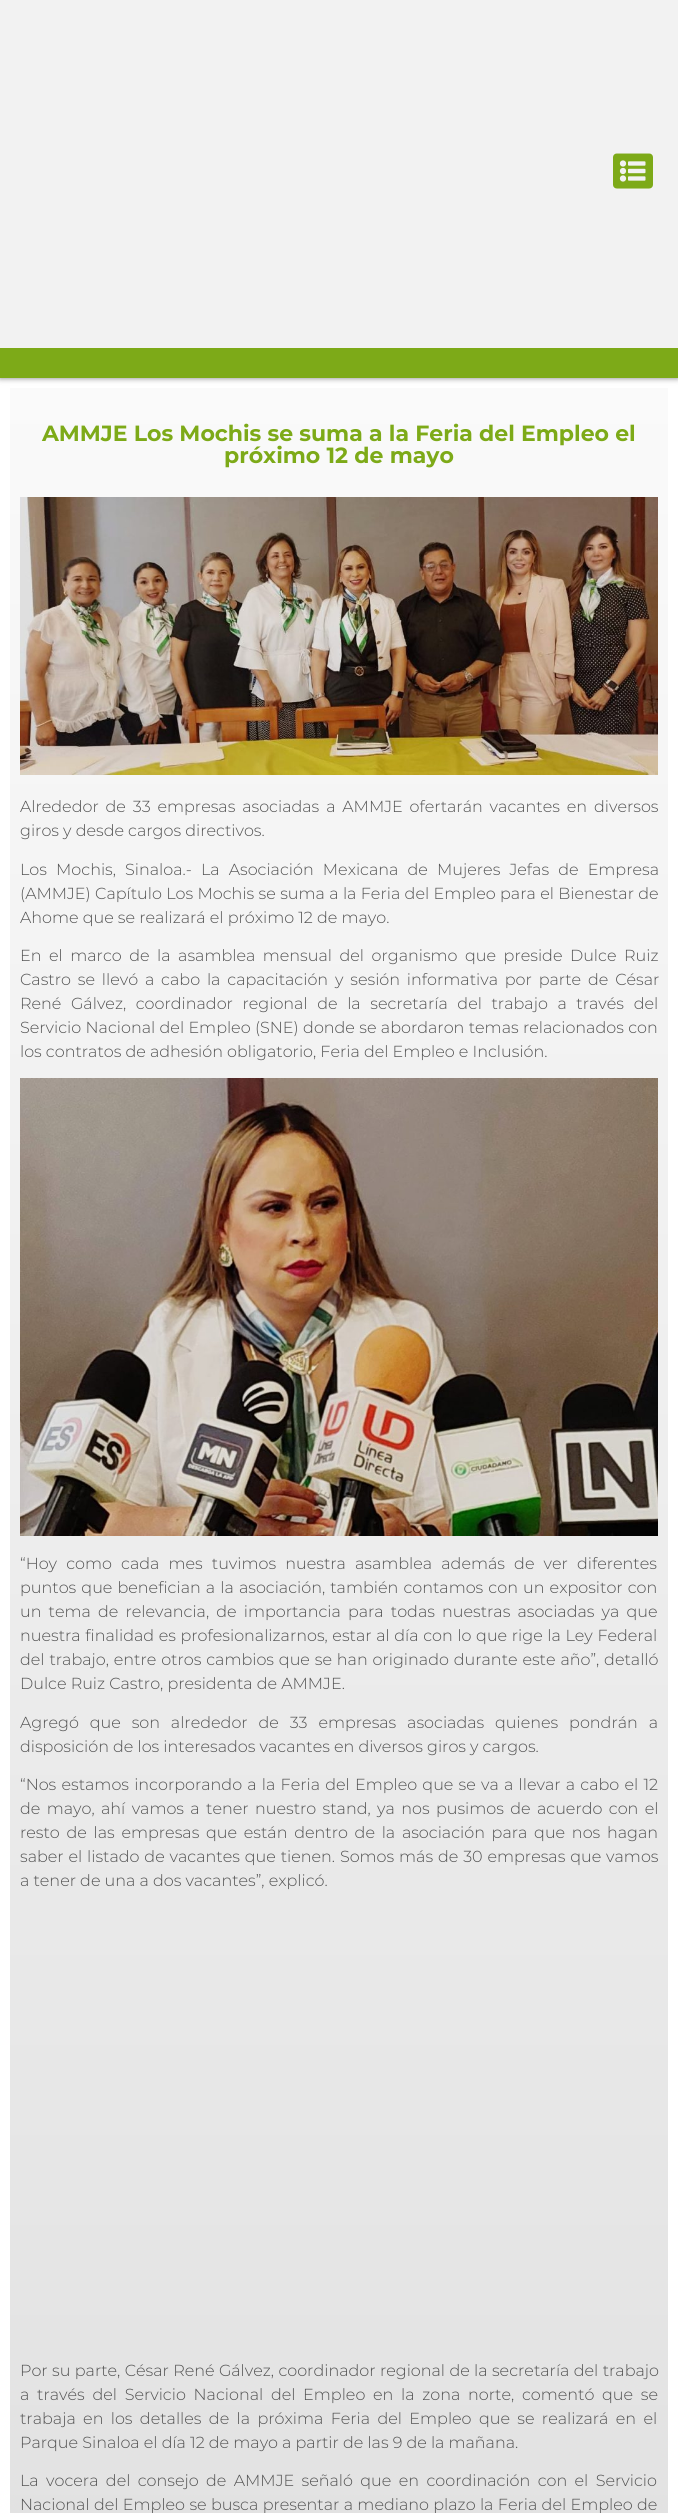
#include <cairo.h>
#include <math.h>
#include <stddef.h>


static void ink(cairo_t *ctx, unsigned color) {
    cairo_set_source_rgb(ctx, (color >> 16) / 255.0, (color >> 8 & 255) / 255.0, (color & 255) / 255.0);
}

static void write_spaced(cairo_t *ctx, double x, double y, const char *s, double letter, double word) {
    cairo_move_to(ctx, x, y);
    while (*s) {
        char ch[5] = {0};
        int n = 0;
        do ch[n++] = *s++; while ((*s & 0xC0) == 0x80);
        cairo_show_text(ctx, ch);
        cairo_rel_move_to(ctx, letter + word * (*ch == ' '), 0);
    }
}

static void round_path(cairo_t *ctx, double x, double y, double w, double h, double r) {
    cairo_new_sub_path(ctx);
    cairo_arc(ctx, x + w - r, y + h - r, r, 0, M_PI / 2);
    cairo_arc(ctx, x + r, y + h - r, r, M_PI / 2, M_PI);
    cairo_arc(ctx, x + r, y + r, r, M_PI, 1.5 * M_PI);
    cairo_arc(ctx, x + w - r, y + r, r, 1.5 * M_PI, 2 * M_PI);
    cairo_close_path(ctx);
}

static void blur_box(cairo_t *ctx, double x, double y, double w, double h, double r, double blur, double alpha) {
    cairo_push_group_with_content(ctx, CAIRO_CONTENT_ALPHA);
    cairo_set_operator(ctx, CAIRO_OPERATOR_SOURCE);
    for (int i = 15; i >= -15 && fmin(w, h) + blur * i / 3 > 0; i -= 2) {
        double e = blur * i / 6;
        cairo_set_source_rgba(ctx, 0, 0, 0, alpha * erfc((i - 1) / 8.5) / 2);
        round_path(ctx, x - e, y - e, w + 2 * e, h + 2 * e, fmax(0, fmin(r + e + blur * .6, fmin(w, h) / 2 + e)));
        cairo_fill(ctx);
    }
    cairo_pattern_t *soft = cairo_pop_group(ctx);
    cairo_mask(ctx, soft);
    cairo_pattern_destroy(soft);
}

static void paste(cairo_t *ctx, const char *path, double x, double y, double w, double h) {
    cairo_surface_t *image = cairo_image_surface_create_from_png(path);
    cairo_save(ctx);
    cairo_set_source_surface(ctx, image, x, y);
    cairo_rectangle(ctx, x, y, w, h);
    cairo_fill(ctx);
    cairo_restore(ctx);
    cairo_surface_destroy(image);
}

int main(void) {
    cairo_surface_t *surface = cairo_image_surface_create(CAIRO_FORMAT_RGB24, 678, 2513);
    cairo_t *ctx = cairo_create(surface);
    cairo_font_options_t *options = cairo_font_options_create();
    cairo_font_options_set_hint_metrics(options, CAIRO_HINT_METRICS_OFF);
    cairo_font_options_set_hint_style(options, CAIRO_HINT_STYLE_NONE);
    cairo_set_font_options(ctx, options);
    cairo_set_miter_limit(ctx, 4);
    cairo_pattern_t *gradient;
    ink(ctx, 0xFFFFFF);
    cairo_paint(ctx);
    ink(ctx, 0x000000);
    blur_box(ctx, 0, 0, 678, 378, 0, 3, 0.5);
    ink(ctx, 0xF2F2F2);
    cairo_rectangle(ctx, 0, 0, 678, 348);
    cairo_fill(ctx);
    paste(ctx, "media/1.png", 613, 153, 40, 36);
    ink(ctx, 0x7DAA18);
    cairo_rectangle(ctx, 0, 348, 678, 30);
    cairo_fill(ctx);
    gradient = cairo_pattern_create_linear(339, 388, 339, 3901);
    cairo_pattern_add_color_stop_rgba(gradient, 0, 0.98, 0.98, 0.98, 1);
    cairo_pattern_add_color_stop_rgba(gradient, 1, 0.827, 0.827, 0.827, 1);
    cairo_set_source(ctx, gradient);
    cairo_pattern_destroy(gradient);
    cairo_rectangle(ctx, 10, 388, 658, 2125);
    cairo_fill(ctx);
    cairo_select_font_face(ctx, "Montserrat", CAIRO_FONT_SLANT_NORMAL, CAIRO_FONT_WEIGHT_BOLD);
    cairo_set_font_size(ctx, 22);
    ink(ctx, 0x7DAA18);
    cairo_move_to(ctx, 42, 441);
    cairo_show_text(ctx, "AMMJE Los Mochis se suma a la Feria del Empleo el");
    cairo_move_to(ctx, 224, 463);
    cairo_show_text(ctx, "próximo 12 de mayo");
    paste(ctx, "media/2.png", 20, 497, 638, 278);
    cairo_select_font_face(ctx, "Montserrat Light", CAIRO_FONT_SLANT_NORMAL, CAIRO_FONT_WEIGHT_NORMAL);
    cairo_set_font_size(ctx, 16);
    ink(ctx, 0x525252);
    write_spaced(ctx, 20, 812, "Alrededor de 33 empresas asociadas a AMMJE ofertarán vacantes en diversos", 0, 2.75);
    cairo_move_to(ctx, 20, 836);
    cairo_show_text(ctx, "giros y desde cargos directivos.");
    write_spaced(ctx, 20, 875, "Los Mochis, Sinaloa.- La Asociación Mexicana de Mujeres Jefas de Empresa", 0, 5);
    write_spaced(ctx, 20, 899, "(AMMJE) Capítulo Los Mochis se suma a la Feria del Empleo para el Bienestar de", 0, 0.25);
    cairo_move_to(ctx, 20, 923);
    cairo_show_text(ctx, "Ahome que se realizará el próximo 12 de mayo.");
    write_spaced(ctx, 20, 961, "En el marco de la asamblea mensual del organismo que preside Dulce Ruiz", 0, 3.4);
    write_spaced(ctx, 20, 985, "Castro se llevó a cabo la capacitación y sesión informativa por parte de César", 0, 2.75);
    write_spaced(ctx, 20, 1009, "René Gálvez, coordinador regional de la secretaría del trabajo a través del", 0, 5.5);
    write_spaced(ctx, 20, 1033, "Servicio Nacional del Empleo (SNE) donde se abordaron temas relacionados con", 0, 0.25);
    cairo_move_to(ctx, 20, 1057);
    cairo_show_text(ctx, "los contratos de adhesión obligatorio, Feria del Empleo e Inclusión.");
    paste(ctx, "media/3.png", 20, 1078, 638, 458);
    write_spaced(ctx, 20, 1569, "“Hoy como cada mes tuvimos nuestra asamblea además de ver diferentes", 0, 5);
    write_spaced(ctx, 20, 1593, "puntos que benefician a la asociación, también contamos con un expositor con", 0, 1);
    write_spaced(ctx, 20, 1617, "un tema de relevancia, de importancia para todas nuestras asociadas ya que", 0, 3);
    write_spaced(ctx, 20, 1641, "nuestra finalidad es profesionalizarnos, estar al día con lo que rige la Ley Federal", 0, 0.5);
    write_spaced(ctx, 20, 1665, "del trabajo, entre otros cambios que se han originado durante este año”, detalló", 0, 0.75);
    cairo_move_to(ctx, 20, 1689);
    cairo_show_text(ctx, "Dulce Ruiz Castro, presidenta de AMMJE.");
    write_spaced(ctx, 20, 1728, "Agregó que son alrededor de 33 empresas asociadas quienes pondrán a", 0, 6.75);
    cairo_move_to(ctx, 20, 1752);
    cairo_show_text(ctx, "disposición de los interesados vacantes en diversos giros y cargos.");
    write_spaced(ctx, 20, 1790, "“Nos estamos incorporando a la Feria del Empleo que se va a llevar a cabo el 12", 0, 1.1);
    write_spaced(ctx, 20, 1814, "de mayo, ahí vamos a tener nuestro stand, ya nos pusimos de acuerdo con el", 0, 2.25);
    write_spaced(ctx, 20, 1838, "resto de las empresas que están dentro de la asociación para que nos hagan", 0, 2.6);
    write_spaced(ctx, 20, 1862, "saber el listado de vacantes que tienen. Somos más de 30 empresas que vamos", 0, 0.75);
    cairo_move_to(ctx, 20, 1886);
    cairo_show_text(ctx, "a tener de una a dos vacantes”, explicó.");
    write_spaced(ctx, 20, 2376, "Por su parte, César René Gálvez, coordinador regional de la secretaría del trabajo", 0, 0.25);
    write_spaced(ctx, 20, 2400, "a través del Servicio Nacional del Empleo en la zona norte, comentó que se", 0, 3.6);
    write_spaced(ctx, 20, 2424, "trabaja en los detalles de la próxima Feria del Empleo que se realizará en el", 0, 3.25);
    cairo_move_to(ctx, 20, 2448);
    cairo_show_text(ctx, "Parque Sinaloa el día 12 de mayo a partir de las 9 de la mañana.");
    write_spaced(ctx, 20, 2486, "La vocera del consejo de AMMJE señaló que en coordinación con el Servicio", 0, 3.25);
    write_spaced(ctx, 20, 2510, "Nacional del Empleo se busca presentar a mediano plazo la Feria del Empleo de", 0, 0.25);
    cairo_surface_write_to_png(surface, "image.png");
    cairo_font_options_destroy(options);
    cairo_destroy(ctx);
    cairo_surface_destroy(surface);
    return 0;
}
